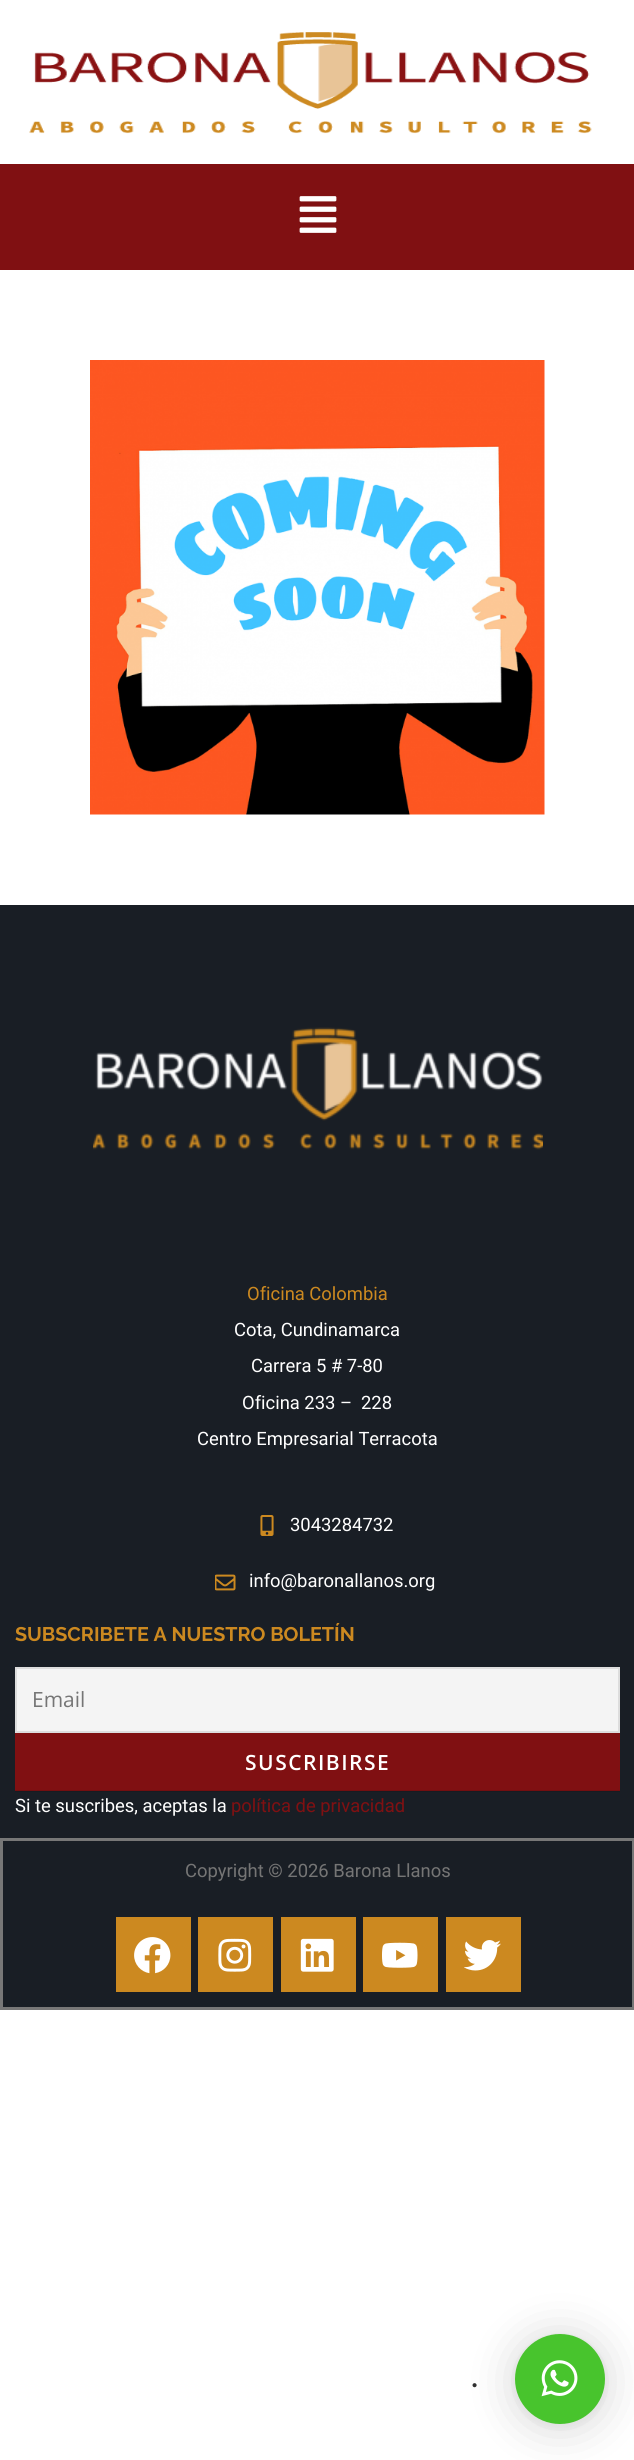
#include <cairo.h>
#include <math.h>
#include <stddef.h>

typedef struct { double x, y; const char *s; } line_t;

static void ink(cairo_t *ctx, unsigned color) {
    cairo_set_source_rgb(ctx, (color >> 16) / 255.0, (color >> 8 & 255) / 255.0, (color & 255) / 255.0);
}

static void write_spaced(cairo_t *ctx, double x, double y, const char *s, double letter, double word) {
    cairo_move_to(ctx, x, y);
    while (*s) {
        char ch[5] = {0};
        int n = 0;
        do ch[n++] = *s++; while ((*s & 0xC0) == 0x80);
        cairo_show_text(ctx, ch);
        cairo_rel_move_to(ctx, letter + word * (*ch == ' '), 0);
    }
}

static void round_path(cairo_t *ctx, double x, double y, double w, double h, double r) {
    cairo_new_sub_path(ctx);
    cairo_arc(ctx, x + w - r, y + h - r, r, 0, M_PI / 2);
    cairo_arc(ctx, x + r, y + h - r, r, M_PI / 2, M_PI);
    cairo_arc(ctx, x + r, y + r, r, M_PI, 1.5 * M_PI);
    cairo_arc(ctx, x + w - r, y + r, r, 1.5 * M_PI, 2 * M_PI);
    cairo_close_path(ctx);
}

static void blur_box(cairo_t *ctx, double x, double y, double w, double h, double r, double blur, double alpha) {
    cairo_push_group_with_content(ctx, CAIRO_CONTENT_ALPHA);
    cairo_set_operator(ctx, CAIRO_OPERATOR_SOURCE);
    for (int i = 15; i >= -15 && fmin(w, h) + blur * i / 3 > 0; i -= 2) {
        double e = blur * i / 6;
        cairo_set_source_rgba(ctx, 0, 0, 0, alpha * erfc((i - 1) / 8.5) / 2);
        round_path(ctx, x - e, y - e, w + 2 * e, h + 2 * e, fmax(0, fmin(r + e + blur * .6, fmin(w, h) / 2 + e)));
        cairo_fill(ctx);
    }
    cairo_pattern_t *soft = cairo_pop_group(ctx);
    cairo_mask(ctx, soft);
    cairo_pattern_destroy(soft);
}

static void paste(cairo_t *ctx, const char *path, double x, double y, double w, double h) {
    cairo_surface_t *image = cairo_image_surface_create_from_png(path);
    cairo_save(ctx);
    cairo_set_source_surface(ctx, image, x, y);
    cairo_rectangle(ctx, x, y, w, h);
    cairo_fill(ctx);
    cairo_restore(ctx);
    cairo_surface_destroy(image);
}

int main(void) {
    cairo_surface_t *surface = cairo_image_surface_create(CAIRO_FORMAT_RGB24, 634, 2460);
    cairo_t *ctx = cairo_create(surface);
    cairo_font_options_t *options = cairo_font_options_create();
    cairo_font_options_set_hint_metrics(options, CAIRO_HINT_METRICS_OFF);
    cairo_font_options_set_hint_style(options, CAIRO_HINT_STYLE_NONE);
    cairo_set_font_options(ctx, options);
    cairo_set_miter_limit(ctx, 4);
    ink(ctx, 0xFFFFFF);
    cairo_paint(ctx);
    paste(ctx, "media/1.png", 29, 32, 563, 102);
    ink(ctx, 0x801012);
    cairo_rectangle(ctx, 0, 164, 634, 106);
    cairo_fill(ctx);
    paste(ctx, "media/2.png", 299, 196, 38, 37);
    paste(ctx, "media/3.png", 90, 360, 455, 455);
    ink(ctx, 0x191E25);
    cairo_rectangle(ctx, 0, 905, 634, 933);
    cairo_fill(ctx);
    ink(ctx, 0x171B21);
    cairo_rectangle(ctx, 15, 1791, 605, 1);
    cairo_fill(ctx);
    paste(ctx, "media/4.png", 93, 1027, 450, 123);
    cairo_select_font_face(ctx, "Roboto", CAIRO_FONT_SLANT_NORMAL, CAIRO_FONT_WEIGHT_NORMAL);
    cairo_set_font_size(ctx, 18.4);
    ink(ctx, 0xCC8920);
    cairo_move_to(ctx, 247, 1300);
    cairo_show_text(ctx, "Oficina Colombia");
    ink(ctx, 0xFFFFFF);
    {
        static const line_t items[] = {
            {234, 1336, "Cota, Cundinamarca"},
            {251, 1372, "Carrera 5 # 7-80"},
            {242, 1409, "Oficina 233 –"},
            {361, 1409, "228"},
            {197, 1445, "Centro Empresarial Terracota"},
        };
        for (size_t i = 0; i < sizeof items / sizeof *items; i++) {
            cairo_move_to(ctx, items[i].x, items[i].y);
            cairo_show_text(ctx, items[i].s);
        }
    }
    paste(ctx, "media/5.png", 260, 1515, 14, 21);
    cairo_move_to(ctx, 290, 1531);
    cairo_show_text(ctx, "3043284732");
    paste(ctx, "media/6.png", 215, 1574, 21, 17);
    cairo_move_to(ctx, 249, 1587);
    cairo_show_text(ctx, "info@baronallanos.org");
    cairo_select_font_face(ctx, "Raleway", CAIRO_FONT_SLANT_NORMAL, CAIRO_FONT_WEIGHT_BOLD);
    cairo_set_font_size(ctx, 19.7);
    ink(ctx, 0xCC8920);
    cairo_move_to(ctx, 15, 1641);
    cairo_show_text(ctx, "SUBSCRIBETE A NUESTRO BOLETÍN");
    ink(ctx, 0xF4F4F4);
    cairo_rectangle(ctx, 16, 1668, 603, 64);
    cairo_fill_preserve(ctx);
    ink(ctx, 0xDDDDDD);
    cairo_stroke(ctx);
    cairo_select_font_face(ctx, "Open Sans", CAIRO_FONT_SLANT_NORMAL, CAIRO_FONT_WEIGHT_NORMAL);
    cairo_set_font_size(ctx, 21);
    ink(ctx, 0x757575);
    cairo_move_to(ctx, 32, 1707);
    cairo_show_text(ctx, "Email");
    ink(ctx, 0x801012);
    cairo_rectangle(ctx, 15, 1733, 605, 57);
    cairo_fill(ctx);
    ink(ctx, 0x730E10);
    cairo_rectangle(ctx, 15, 1790, 605, 1);
    cairo_fill(ctx);
    cairo_select_font_face(ctx, "Open Sans SemiBold", CAIRO_FONT_SLANT_NORMAL, CAIRO_FONT_WEIGHT_NORMAL);
    ink(ctx, 0xFFFFFF);
    write_spaced(ctx, 245, 1770, "SUSCRIBIRSE", 1.5, 0);
    cairo_select_font_face(ctx, "Roboto", CAIRO_FONT_SLANT_NORMAL, CAIRO_FONT_WEIGHT_NORMAL);
    cairo_set_font_size(ctx, 18.4);
    cairo_move_to(ctx, 15, 1812);
    cairo_show_text(ctx, "Si te suscribes, aceptas la");
    ink(ctx, 0x801012);
    cairo_move_to(ctx, 231, 1812);
    cairo_show_text(ctx, "política de privacidad");
    ink(ctx, 0x191E25);
    cairo_rectangle(ctx, 1.5, 1839.5, 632, 169);
    cairo_fill_preserve(ctx);
    ink(ctx, 0x777777);
    cairo_set_line_width(ctx, 3);
    cairo_stroke(ctx);
    ink(ctx, 0x757575);
    cairo_move_to(ctx, 185, 1877);
    cairo_show_text(ctx, "Copyright © 2026 Barona Llanos");
    ink(ctx, 0xCC8920);
    cairo_rectangle(ctx, 116, 1917, 75, 75);
    cairo_fill(ctx);
    paste(ctx, "media/7.png", 134, 1937, 37, 37);
    cairo_rectangle(ctx, 198, 1917, 75, 75);
    cairo_fill(ctx);
    paste(ctx, "media/8.png", 218, 1938, 34, 34);
    cairo_rectangle(ctx, 281, 1917, 75, 75);
    cairo_fill(ctx);
    paste(ctx, "media/9.png", 300, 1938, 34, 34);
    cairo_rectangle(ctx, 363, 1917, 75, 75);
    cairo_fill(ctx);
    paste(ctx, "media/10.png", 382, 1942, 36, 26);
    cairo_rectangle(ctx, 446, 1917, 75, 75);
    cairo_fill(ctx);
    paste(ctx, "media/11.png", 464, 1940, 37, 31);
    ink(ctx, 0x000000);
    blur_box(ctx, 515, 2337, 90, 90, 45, 24, 0.16);
    blur_box(ctx, 515, 2336, 90, 90, 45, 4.5, 0.06);
    ink(ctx, 0x48C42D);
    cairo_arc(ctx, 560, 2379, 45, 0, 2 * M_PI);
    cairo_fill(ctx);
    cairo_select_font_face(ctx, "Inter", CAIRO_FONT_SLANT_NORMAL, CAIRO_FONT_WEIGHT_BOLD);
    cairo_set_font_size(ctx, 24);
    ink(ctx, 0x303030);
    cairo_move_to(ctx, 471, 2387);
    cairo_show_text(ctx, ".");
    paste(ctx, "media/12.png", 541, 2360, 37, 37);
    cairo_surface_write_to_png(surface, "image.png");
    cairo_font_options_destroy(options);
    cairo_destroy(ctx);
    cairo_surface_destroy(surface);
    return 0;
}
